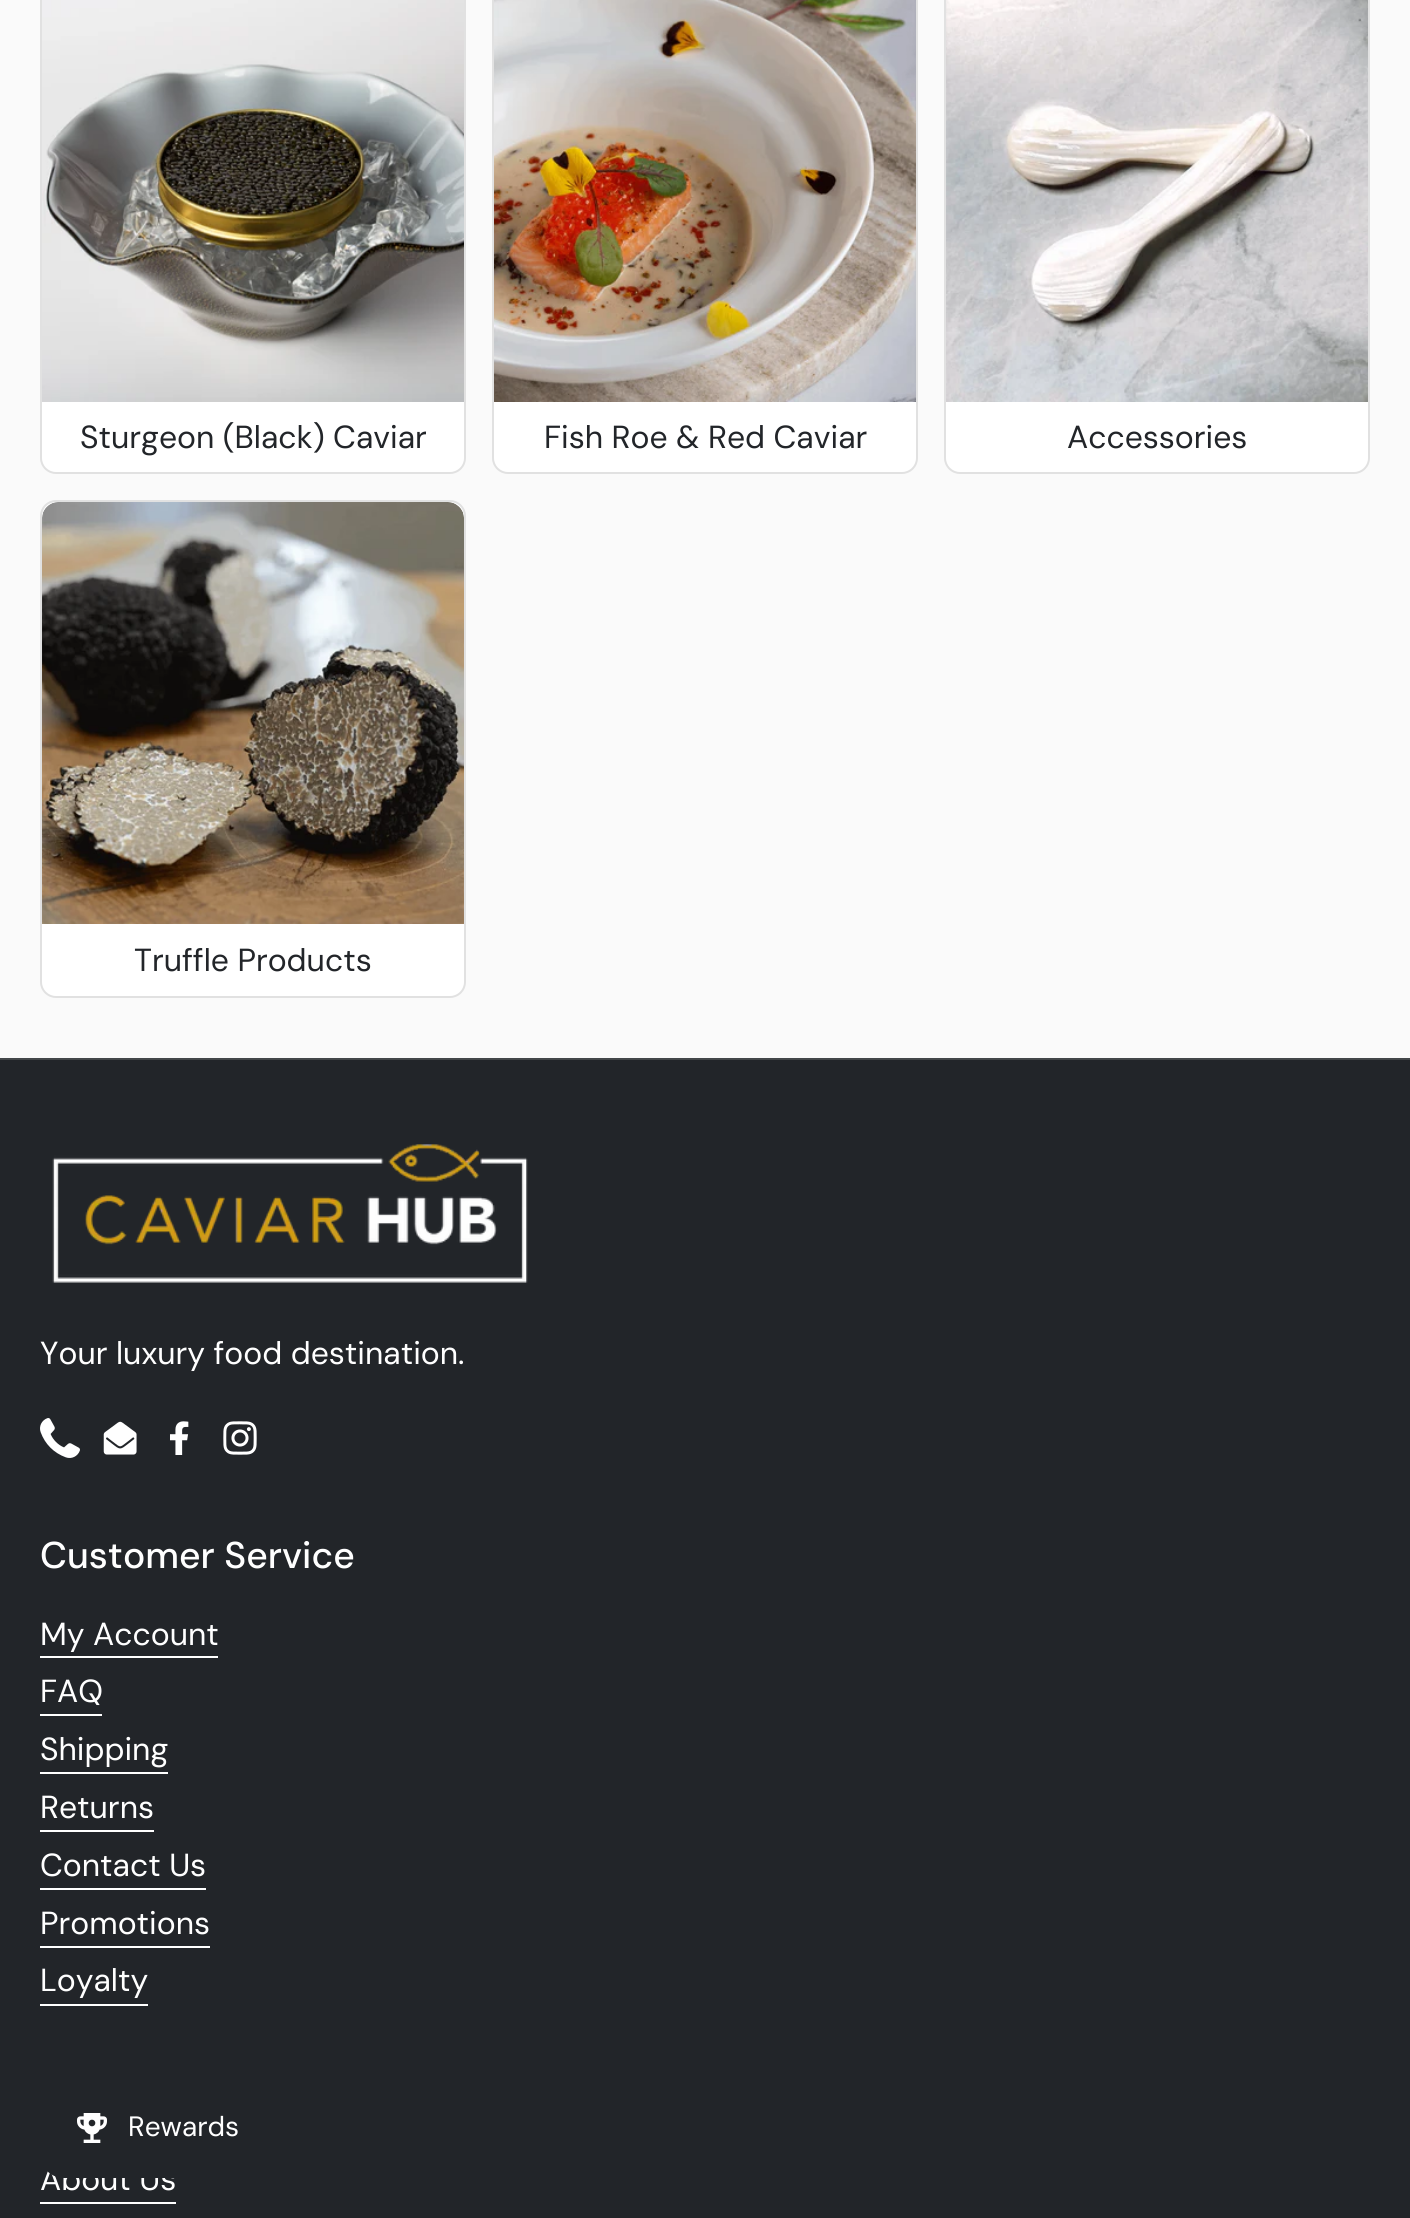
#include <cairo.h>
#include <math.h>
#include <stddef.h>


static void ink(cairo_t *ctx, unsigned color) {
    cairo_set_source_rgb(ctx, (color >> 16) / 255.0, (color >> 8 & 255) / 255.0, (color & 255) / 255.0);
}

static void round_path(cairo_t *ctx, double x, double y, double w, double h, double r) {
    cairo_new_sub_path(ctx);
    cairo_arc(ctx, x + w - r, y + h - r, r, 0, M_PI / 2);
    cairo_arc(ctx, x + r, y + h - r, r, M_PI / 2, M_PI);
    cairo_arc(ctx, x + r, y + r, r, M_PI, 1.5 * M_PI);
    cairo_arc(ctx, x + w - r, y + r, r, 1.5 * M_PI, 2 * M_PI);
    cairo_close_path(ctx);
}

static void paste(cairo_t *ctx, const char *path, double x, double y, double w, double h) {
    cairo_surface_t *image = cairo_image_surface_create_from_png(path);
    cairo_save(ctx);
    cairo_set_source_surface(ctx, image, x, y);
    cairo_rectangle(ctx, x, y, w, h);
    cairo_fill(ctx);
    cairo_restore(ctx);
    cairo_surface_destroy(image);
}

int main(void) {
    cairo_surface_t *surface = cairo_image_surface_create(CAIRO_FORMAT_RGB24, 1410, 2218);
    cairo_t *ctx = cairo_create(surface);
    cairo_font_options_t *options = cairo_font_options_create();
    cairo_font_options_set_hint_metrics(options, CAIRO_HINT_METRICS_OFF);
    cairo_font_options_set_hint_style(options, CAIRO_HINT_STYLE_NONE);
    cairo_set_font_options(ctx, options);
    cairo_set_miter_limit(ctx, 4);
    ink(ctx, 0xFAFAFA);
    cairo_paint(ctx);
    ink(ctx, 0xFFFFFF);
    round_path(ctx, 41, -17, 424, 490, 15);
    cairo_fill_preserve(ctx);
    ink(ctx, 0xE1E1E1);
    cairo_stroke(ctx);
    paste(ctx, "media/1.png", 42, 0, 422, 402);
    cairo_select_font_face(ctx, "DM Sans", CAIRO_FONT_SLANT_NORMAL, CAIRO_FONT_WEIGHT_NORMAL);
    cairo_set_font_size(ctx, 31.9);
    ink(ctx, 0x222529);
    cairo_move_to(ctx, 80, 448);
    cairo_show_text(ctx, "Sturgeon (Black) Caviar");
    ink(ctx, 0xFFFFFF);
    round_path(ctx, 493, -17, 424, 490, 15);
    cairo_fill_preserve(ctx);
    ink(ctx, 0xE1E1E1);
    cairo_stroke(ctx);
    paste(ctx, "media/2.png", 494, 0, 422, 402);
    ink(ctx, 0x222529);
    cairo_move_to(ctx, 544, 448);
    cairo_show_text(ctx, "Fish Roe & Red Caviar");
    ink(ctx, 0xFFFFFF);
    round_path(ctx, 945, -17, 424, 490, 15);
    cairo_fill_preserve(ctx);
    ink(ctx, 0xE1E1E1);
    cairo_stroke(ctx);
    paste(ctx, "media/3.png", 946, 0, 422, 402);
    ink(ctx, 0x222529);
    cairo_move_to(ctx, 1067, 448);
    cairo_show_text(ctx, "Accessories");
    ink(ctx, 0xFFFFFF);
    round_path(ctx, 41, 501, 424, 496, 15);
    cairo_fill_preserve(ctx);
    ink(ctx, 0xE1E1E1);
    cairo_stroke(ctx);
    paste(ctx, "media/4.png", 42, 502, 422, 422);
    ink(ctx, 0x222529);
    cairo_move_to(ctx, 134, 971);
    cairo_show_text(ctx, "Truffle Products");
    cairo_rectangle(ctx, 0, 1060, 1410, 1158);
    cairo_fill(ctx);
    ink(ctx, 0x434649);
    cairo_rectangle(ctx, 0, 1058, 1410, 2);
    cairo_fill(ctx);
    paste(ctx, "media/5.png", 52, 1144, 476, 139);
    ink(ctx, 0xFFFFFF);
    cairo_move_to(ctx, 40, 1364);
    cairo_show_text(ctx, "Your luxury food destination.");
    paste(ctx, "media/6.png", 40, 1418, 40, 40);
    paste(ctx, "media/7.png", 103, 1421, 34, 34);
    paste(ctx, "media/8.png", 170, 1421, 19, 34);
    paste(ctx, "media/9.png", 223, 1421, 34, 34);
    cairo_select_font_face(ctx, "DM Sans Medium", CAIRO_FONT_SLANT_NORMAL, CAIRO_FONT_WEIGHT_NORMAL);
    cairo_set_font_size(ctx, 37.25);
    cairo_move_to(ctx, 40, 1568);
    cairo_show_text(ctx, "Customer Service");
    cairo_select_font_face(ctx, "DM Sans", CAIRO_FONT_SLANT_NORMAL, CAIRO_FONT_WEIGHT_NORMAL);
    cairo_set_font_size(ctx, 31.9);
    cairo_move_to(ctx, 40, 1645);
    cairo_show_text(ctx, "My Account");
    cairo_rectangle(ctx, 40, 1656, 178, 2);
    cairo_fill(ctx);
    cairo_move_to(ctx, 40, 1702);
    cairo_show_text(ctx, "FAQ");
    cairo_rectangle(ctx, 40, 1714, 62, 2);
    cairo_fill(ctx);
    cairo_move_to(ctx, 40, 1760);
    cairo_show_text(ctx, "Shipping");
    cairo_rectangle(ctx, 40, 1772, 128, 2);
    cairo_fill(ctx);
    cairo_move_to(ctx, 40, 1818);
    cairo_show_text(ctx, "Returns");
    cairo_rectangle(ctx, 40, 1830, 114, 2);
    cairo_fill(ctx);
    cairo_move_to(ctx, 40, 1876);
    cairo_show_text(ctx, "Contact Us");
    cairo_rectangle(ctx, 40, 1888, 166, 2);
    cairo_fill(ctx);
    cairo_move_to(ctx, 40, 1934);
    cairo_show_text(ctx, "Promotions");
    cairo_rectangle(ctx, 40, 1946, 170, 2);
    cairo_fill(ctx);
    cairo_move_to(ctx, 40, 1991);
    cairo_show_text(ctx, "Loyalty");
    cairo_rectangle(ctx, 40, 2004, 108, 2);
    cairo_fill(ctx);
    cairo_move_to(ctx, 40, 2190);
    cairo_show_text(ctx, "About Us");
    cairo_rectangle(ctx, 40, 2202, 136, 2);
    cairo_fill(ctx);
    ink(ctx, 0x222529);
    round_path(ctx, 40, 2078, 232, 100, 24);
    cairo_fill(ctx);
    paste(ctx, "media/10.png", 77, 2113, 30, 30);
    cairo_set_font_size(ctx, 28);
    ink(ctx, 0xFFFFFF);
    cairo_move_to(ctx, 128, 2136);
    cairo_show_text(ctx, "Rewards");
    cairo_surface_write_to_png(surface, "image.png");
    cairo_font_options_destroy(options);
    cairo_destroy(ctx);
    cairo_surface_destroy(surface);
    return 0;
}
